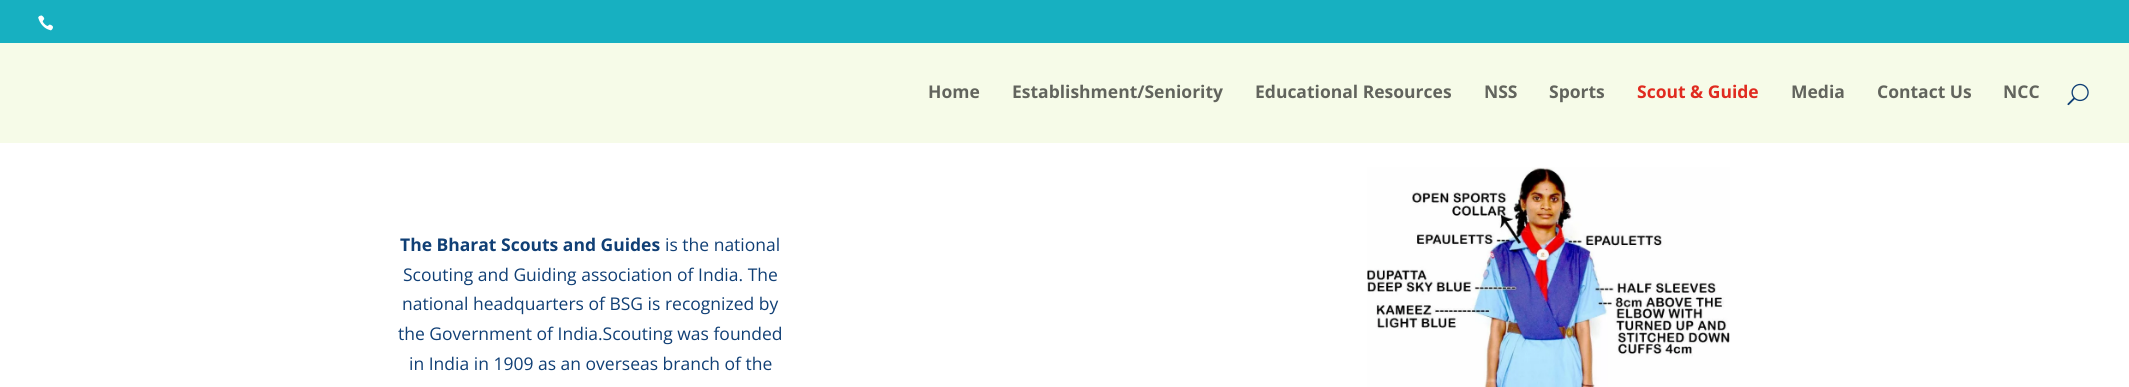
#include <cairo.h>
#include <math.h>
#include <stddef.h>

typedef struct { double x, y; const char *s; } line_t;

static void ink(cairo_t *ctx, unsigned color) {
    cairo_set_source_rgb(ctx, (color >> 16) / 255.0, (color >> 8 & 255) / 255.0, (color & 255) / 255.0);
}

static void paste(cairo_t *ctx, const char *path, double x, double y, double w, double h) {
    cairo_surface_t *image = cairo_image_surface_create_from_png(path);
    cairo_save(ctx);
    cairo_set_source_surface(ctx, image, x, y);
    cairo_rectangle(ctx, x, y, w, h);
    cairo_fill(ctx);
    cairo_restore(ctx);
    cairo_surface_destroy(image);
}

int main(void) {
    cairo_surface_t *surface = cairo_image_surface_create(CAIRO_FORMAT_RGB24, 2129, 387);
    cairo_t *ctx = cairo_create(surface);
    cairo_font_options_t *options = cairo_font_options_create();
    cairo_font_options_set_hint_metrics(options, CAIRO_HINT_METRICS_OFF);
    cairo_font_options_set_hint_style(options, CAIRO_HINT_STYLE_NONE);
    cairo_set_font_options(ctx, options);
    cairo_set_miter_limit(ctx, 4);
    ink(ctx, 0xFFFFFF);
    cairo_paint(ctx);
    ink(ctx, 0x17B0C1);
    cairo_rectangle(ctx, 0, 0, 2129, 43);
    cairo_fill(ctx);
    paste(ctx, "media/1.png", 38, 15, 15, 16);
    ink(ctx, 0xF6FBE8);
    cairo_rectangle(ctx, 0, 43, 2129, 100);
    cairo_fill(ctx);
    cairo_select_font_face(ctx, "Open Sans", CAIRO_FONT_SLANT_NORMAL, CAIRO_FONT_WEIGHT_BOLD);
    cairo_set_font_size(ctx, 17.5);
    ink(ctx, 0x62645D);
    {
        static const line_t items[] = {
            {928, 98, "Home"},
            {1012, 98, "Establishment/Seniority"},
            {1255, 98, "Educational Resources"},
            {1484, 98, "NSS"},
            {1549, 98, "Sports"},
        };
        for (size_t i = 0; i < sizeof items / sizeof *items; i++) {
            cairo_move_to(ctx, items[i].x, items[i].y);
            cairo_show_text(ctx, items[i].s);
        }
    }
    ink(ctx, 0xE02B20);
    cairo_move_to(ctx, 1637, 98);
    cairo_show_text(ctx, "Scout & Guide");
    ink(ctx, 0x62645D);
    {
        static const line_t items[] = {
            {1791, 98, "Media"},
            {1877, 98, "Contact Us"},
            {2003, 98, "NCC"},
        };
        for (size_t i = 0; i < sizeof items / sizeof *items; i++) {
            cairo_move_to(ctx, items[i].x, items[i].y);
            cairo_show_text(ctx, items[i].s);
        }
    }
    paste(ctx, "media/2.png", 2067, 83, 22, 23);
    ink(ctx, 0x103F75);
    cairo_move_to(ctx, 400, 251);
    cairo_show_text(ctx, "The Bharat Scouts and Guides");
    cairo_select_font_face(ctx, "Open Sans", CAIRO_FONT_SLANT_NORMAL, CAIRO_FONT_WEIGHT_NORMAL);
    {
        static const line_t items[] = {
            {665, 251, "is the national"},
            {403, 281, "Scouting and Guiding association of India. The"},
            {402, 310, "national headquarters of BSG is recognized by"},
            {398, 340, "the Government of India.Scouting was founded"},
            {409, 370, "in India in 1909 as an overseas branch of the"},
        };
        for (size_t i = 0; i < sizeof items / sizeof *items; i++) {
            cairo_move_to(ctx, items[i].x, items[i].y);
            cairo_show_text(ctx, items[i].s);
        }
    }
    paste(ctx, "media/3.png", 1367, 167, 363, 220);
    cairo_surface_write_to_png(surface, "image.png");
    cairo_font_options_destroy(options);
    cairo_destroy(ctx);
    cairo_surface_destroy(surface);
    return 0;
}
